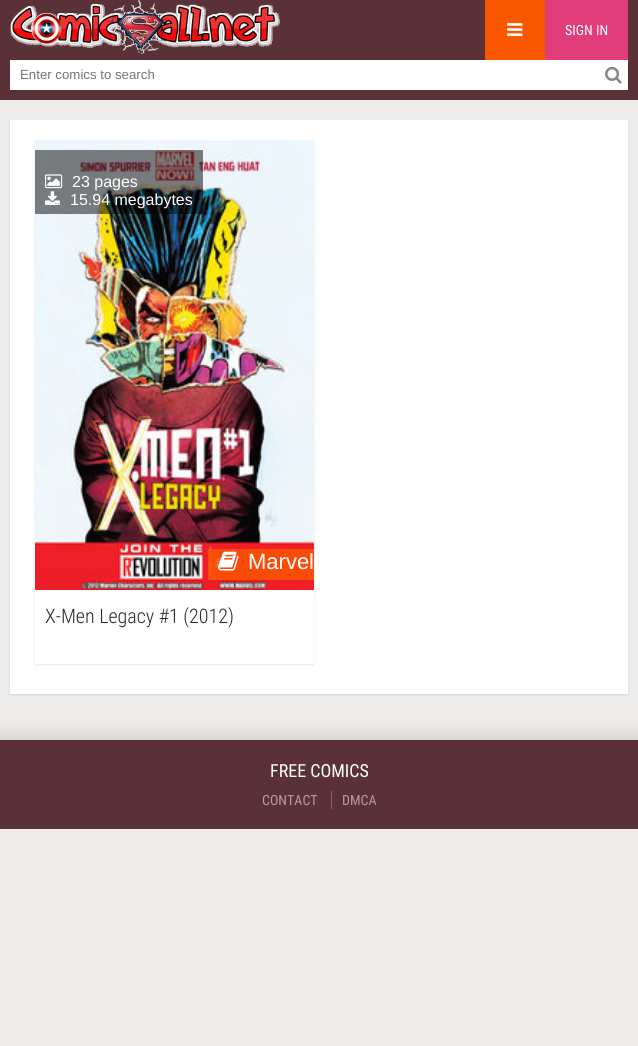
#include <cairo.h>
#include <math.h>
#include <stddef.h>


static void ink(cairo_t *ctx, unsigned color) {
    cairo_set_source_rgb(ctx, (color >> 16) / 255.0, (color >> 8 & 255) / 255.0, (color & 255) / 255.0);
}

static void round_path(cairo_t *ctx, double x, double y, double w, double h, double r) {
    cairo_new_sub_path(ctx);
    cairo_arc(ctx, x + w - r, y + h - r, r, 0, M_PI / 2);
    cairo_arc(ctx, x + r, y + h - r, r, M_PI / 2, M_PI);
    cairo_arc(ctx, x + r, y + r, r, M_PI, 1.5 * M_PI);
    cairo_arc(ctx, x + w - r, y + r, r, 1.5 * M_PI, 2 * M_PI);
    cairo_close_path(ctx);
}

static void blur_box(cairo_t *ctx, double x, double y, double w, double h, double r, double blur, double alpha) {
    cairo_push_group_with_content(ctx, CAIRO_CONTENT_ALPHA);
    cairo_set_operator(ctx, CAIRO_OPERATOR_SOURCE);
    for (int i = 15; i >= -15 && fmin(w, h) + blur * i / 3 > 0; i -= 2) {
        double e = blur * i / 6;
        cairo_set_source_rgba(ctx, 0, 0, 0, alpha * erfc((i - 1) / 8.5) / 2);
        round_path(ctx, x - e, y - e, w + 2 * e, h + 2 * e, fmax(0, fmin(r + e + blur * .6, fmin(w, h) / 2 + e)));
        cairo_fill(ctx);
    }
    cairo_pattern_t *soft = cairo_pop_group(ctx);
    cairo_mask(ctx, soft);
    cairo_pattern_destroy(soft);
}

static void paste(cairo_t *ctx, const char *path, double x, double y, double w, double h) {
    cairo_surface_t *image = cairo_image_surface_create_from_png(path);
    cairo_save(ctx);
    cairo_set_source_surface(ctx, image, x, y);
    cairo_rectangle(ctx, x, y, w, h);
    cairo_fill(ctx);
    cairo_restore(ctx);
    cairo_surface_destroy(image);
}

int main(void) {
    cairo_surface_t *surface = cairo_image_surface_create(CAIRO_FORMAT_RGB24, 638, 1046);
    cairo_t *ctx = cairo_create(surface);
    cairo_font_options_t *options = cairo_font_options_create();
    cairo_font_options_set_hint_metrics(options, CAIRO_HINT_METRICS_OFF);
    cairo_font_options_set_hint_style(options, CAIRO_HINT_STYLE_NONE);
    cairo_set_font_options(ctx, options);
    cairo_set_miter_limit(ctx, 4);
    ink(ctx, 0xEEEBEB);
    cairo_paint(ctx);
    ink(ctx, 0x593136);
    cairo_rectangle(ctx, 0, 0, 638, 100);
    cairo_fill(ctx);
    paste(ctx, "media/1.png", 10, 0, 270, 54);
    ink(ctx, 0xFA5800);
    cairo_rectangle(ctx, 485, 0, 60, 60);
    cairo_fill(ctx);
    paste(ctx, "media/2.png", 507, 23, 16, 13);
    ink(ctx, 0xE13D7A);
    cairo_rectangle(ctx, 545, 0, 83, 60);
    cairo_fill(ctx);
    cairo_select_font_face(ctx, "Roboto Condensed", CAIRO_FONT_SLANT_NORMAL, CAIRO_FONT_WEIGHT_NORMAL);
    cairo_set_font_size(ctx, 14);
    ink(ctx, 0xFFFFFF);
    cairo_move_to(ctx, 565, 35);
    cairo_show_text(ctx, "SIGN IN");
    cairo_rectangle(ctx, 10, 60, 618, 30);
    cairo_fill(ctx);
    cairo_select_font_face(ctx, "Liberation Sans", CAIRO_FONT_SLANT_NORMAL, CAIRO_FONT_WEIGHT_NORMAL);
    cairo_set_font_size(ctx, 13.25);
    ink(ctx, 0x757575);
    cairo_move_to(ctx, 20, 79);
    cairo_show_text(ctx, "Enter comics to search");
    paste(ctx, "media/3.png", 605, 66, 17, 18);
    ink(ctx, 0x000000);
    blur_box(ctx, 10, 121, 618, 574, 0, 1, 0.1);
    ink(ctx, 0xFFFFFF);
    cairo_rectangle(ctx, 10, 120, 618, 574);
    cairo_fill(ctx);
    cairo_save(ctx);
    cairo_set_fill_rule(ctx, CAIRO_FILL_RULE_EVEN_ODD);
    cairo_new_path(ctx);
    cairo_move_to(ctx, 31, 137);
    cairo_line_to(ctx, 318, 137);
    cairo_line_to(ctx, 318, 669);
    cairo_line_to(ctx, 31, 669);
    cairo_close_path(ctx);
    cairo_move_to(ctx, 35, 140);
    cairo_line_to(ctx, 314, 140);
    cairo_line_to(ctx, 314, 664);
    cairo_line_to(ctx, 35, 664);
    cairo_close_path(ctx);
    cairo_clip(ctx);
    ink(ctx, 0x000000);
    blur_box(ctx, 35, 141, 279, 524, 0, 1, 0.1);
    cairo_restore(ctx);
    paste(ctx, "media/4.png", 35, 140, 279, 450);
    cairo_set_source_rgba(ctx, 0, 0, 0, 0.5);
    cairo_rectangle(ctx, 35, 150, 168, 64);
    cairo_fill(ctx);
    paste(ctx, "media/5.png", 45, 174, 18, 15);
    cairo_set_font_size(ctx, 16);
    ink(ctx, 0xFFFFFF);
    cairo_move_to(ctx, 72, 187);
    cairo_show_text(ctx, "23 pages");
    paste(ctx, "media/6.png", 45, 191, 15, 14);
    cairo_move_to(ctx, 70, 205);
    cairo_show_text(ctx, "15.94 megabytes");
    cairo_set_source_rgba(ctx, 0.98, 0.345, 0, 0.8);
    cairo_rectangle(ctx, 208, 549, 106, 31);
    cairo_fill(ctx);
    paste(ctx, "media/7.png", 218, 551, 21, 20);
    cairo_set_font_size(ctx, 22);
    ink(ctx, 0xFFFFFF);
    cairo_move_to(ctx, 248, 569);
    cairo_show_text(ctx, "Marvel");
    cairo_select_font_face(ctx, "Roboto Condensed Light", CAIRO_FONT_SLANT_NORMAL, CAIRO_FONT_WEIGHT_NORMAL);
    cairo_set_font_size(ctx, 20);
    ink(ctx, 0x2A2A2A);
    cairo_move_to(ctx, 45, 623);
    cairo_show_text(ctx, "X-Men Legacy #1 (2012)");
    ink(ctx, 0x000000);
    blur_box(ctx, -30, 740, 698, 49, 0, 10, 0.2);
    ink(ctx, 0x593136);
    cairo_rectangle(ctx, 0, 740, 638, 89);
    cairo_fill(ctx);
    cairo_select_font_face(ctx, "Roboto Condensed", CAIRO_FONT_SLANT_NORMAL, CAIRO_FONT_WEIGHT_NORMAL);
    cairo_set_font_size(ctx, 18);
    ink(ctx, 0xFFFFFF);
    cairo_move_to(ctx, 270, 777);
    cairo_show_text(ctx, "FREE COMICS");
    cairo_set_font_size(ctx, 14);
    ink(ctx, 0xB79AA4);
    cairo_move_to(ctx, 262, 805);
    cairo_show_text(ctx, "CONTACT");
    ink(ctx, 0x86636F);
    cairo_rectangle(ctx, 331, 791, 1, 18);
    cairo_fill(ctx);
    ink(ctx, 0xB79AA4);
    cairo_move_to(ctx, 342, 805);
    cairo_show_text(ctx, "DMCA");
    cairo_surface_write_to_png(surface, "image.png");
    cairo_font_options_destroy(options);
    cairo_destroy(ctx);
    cairo_surface_destroy(surface);
    return 0;
}
